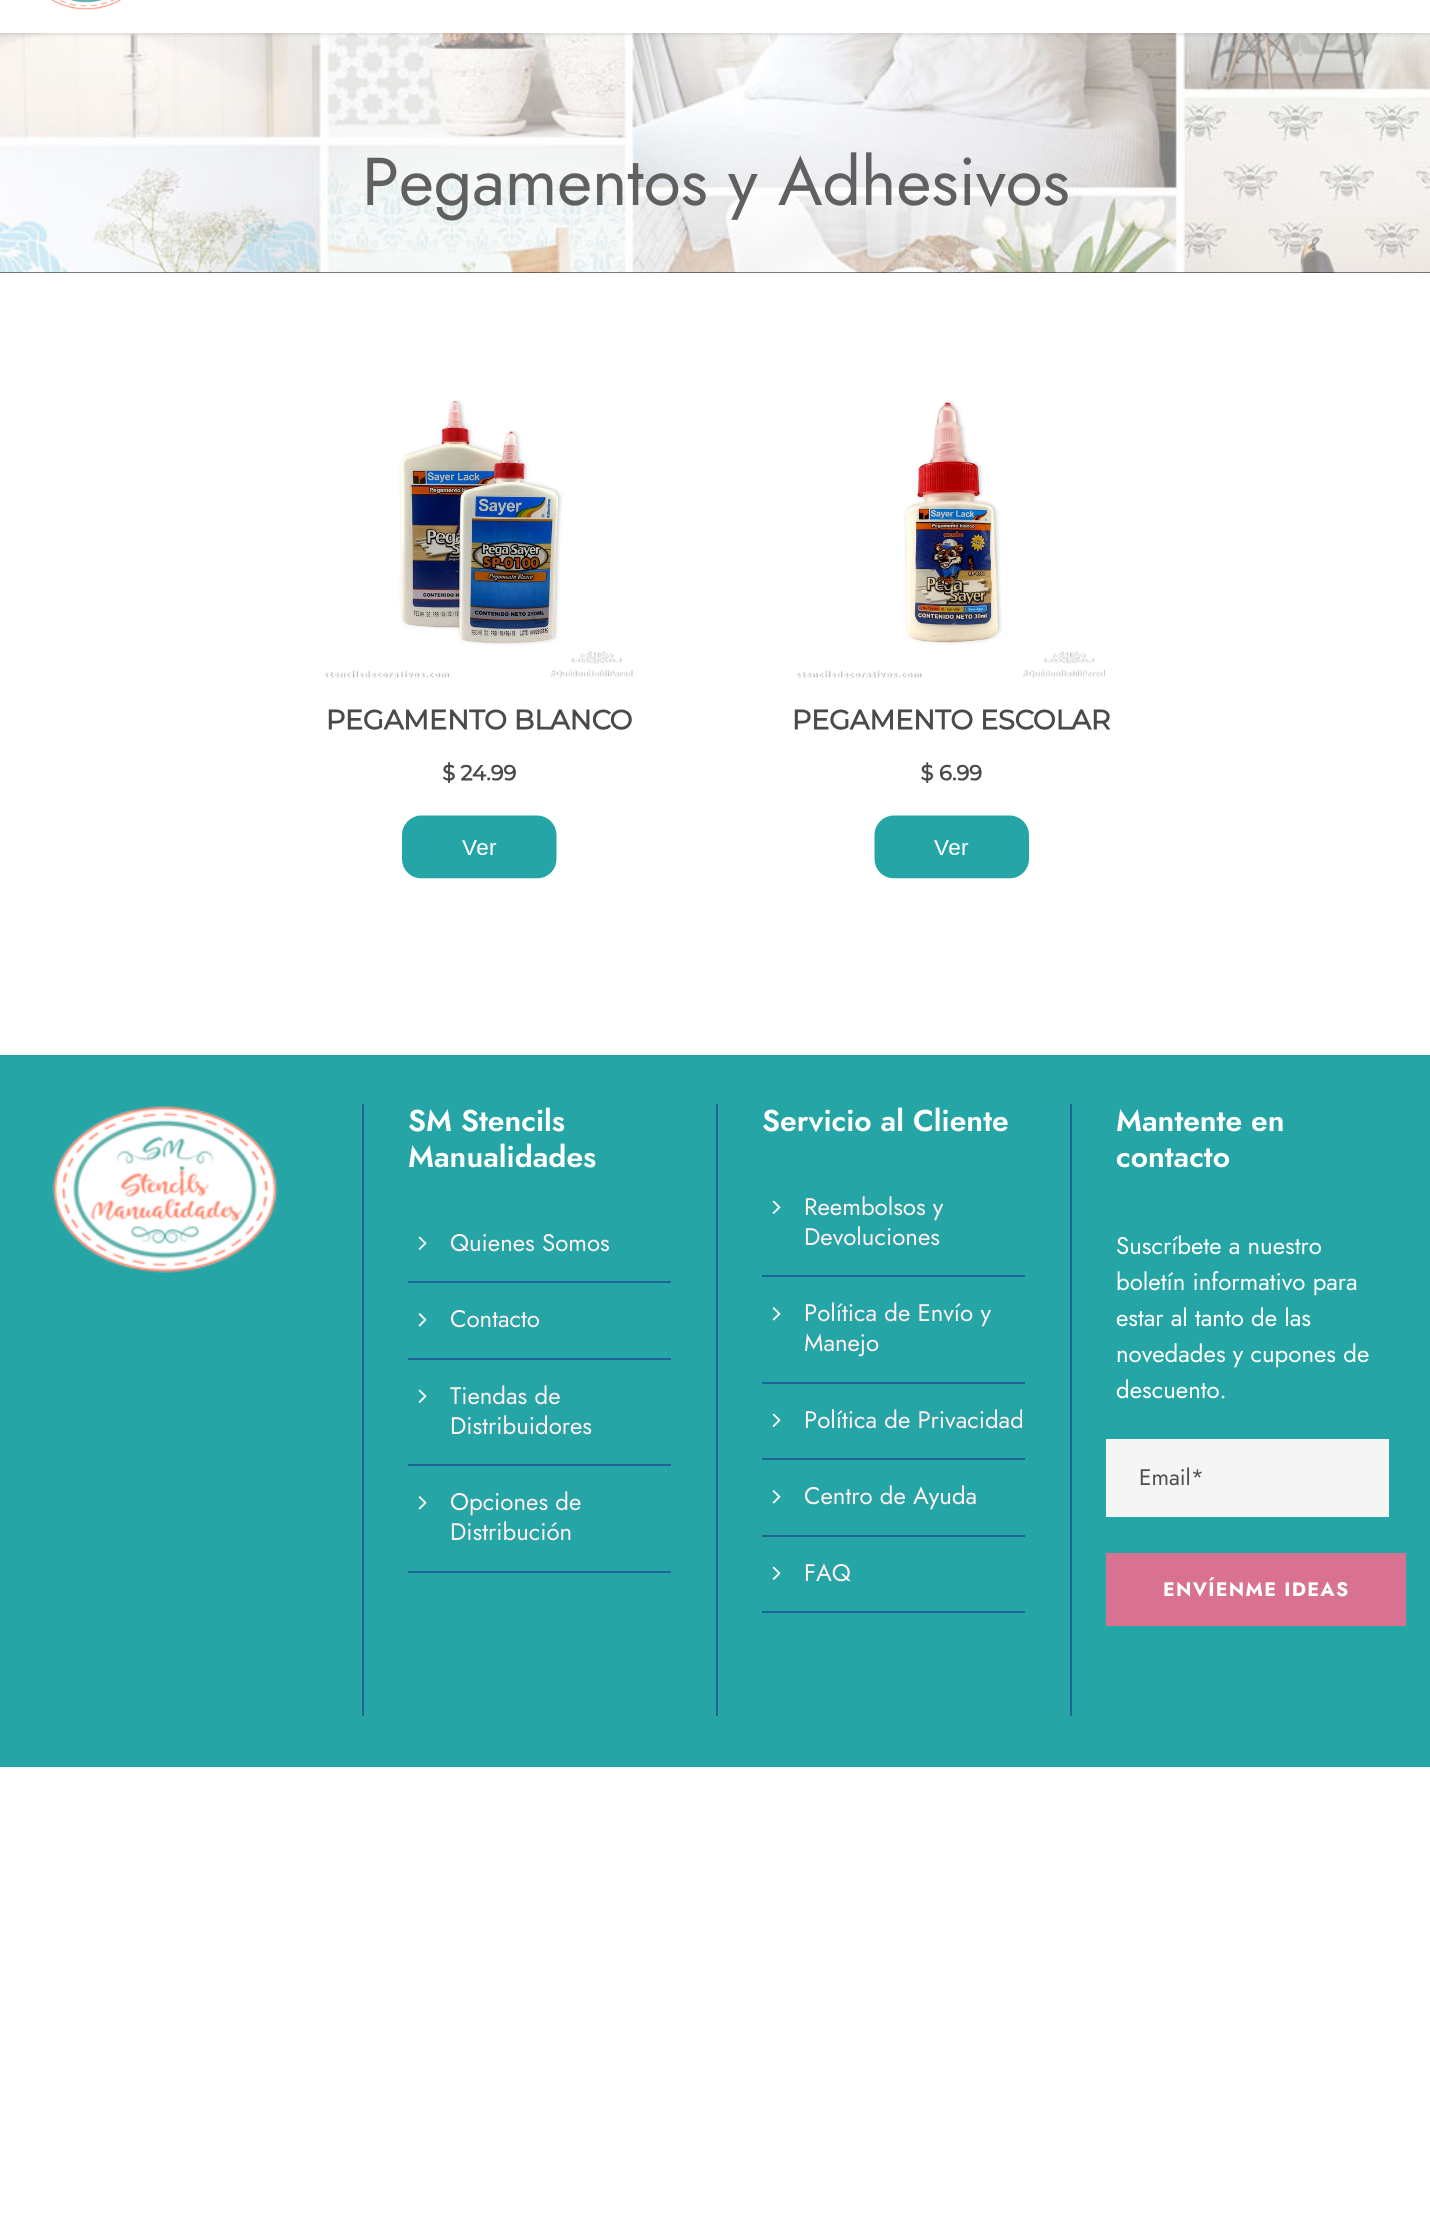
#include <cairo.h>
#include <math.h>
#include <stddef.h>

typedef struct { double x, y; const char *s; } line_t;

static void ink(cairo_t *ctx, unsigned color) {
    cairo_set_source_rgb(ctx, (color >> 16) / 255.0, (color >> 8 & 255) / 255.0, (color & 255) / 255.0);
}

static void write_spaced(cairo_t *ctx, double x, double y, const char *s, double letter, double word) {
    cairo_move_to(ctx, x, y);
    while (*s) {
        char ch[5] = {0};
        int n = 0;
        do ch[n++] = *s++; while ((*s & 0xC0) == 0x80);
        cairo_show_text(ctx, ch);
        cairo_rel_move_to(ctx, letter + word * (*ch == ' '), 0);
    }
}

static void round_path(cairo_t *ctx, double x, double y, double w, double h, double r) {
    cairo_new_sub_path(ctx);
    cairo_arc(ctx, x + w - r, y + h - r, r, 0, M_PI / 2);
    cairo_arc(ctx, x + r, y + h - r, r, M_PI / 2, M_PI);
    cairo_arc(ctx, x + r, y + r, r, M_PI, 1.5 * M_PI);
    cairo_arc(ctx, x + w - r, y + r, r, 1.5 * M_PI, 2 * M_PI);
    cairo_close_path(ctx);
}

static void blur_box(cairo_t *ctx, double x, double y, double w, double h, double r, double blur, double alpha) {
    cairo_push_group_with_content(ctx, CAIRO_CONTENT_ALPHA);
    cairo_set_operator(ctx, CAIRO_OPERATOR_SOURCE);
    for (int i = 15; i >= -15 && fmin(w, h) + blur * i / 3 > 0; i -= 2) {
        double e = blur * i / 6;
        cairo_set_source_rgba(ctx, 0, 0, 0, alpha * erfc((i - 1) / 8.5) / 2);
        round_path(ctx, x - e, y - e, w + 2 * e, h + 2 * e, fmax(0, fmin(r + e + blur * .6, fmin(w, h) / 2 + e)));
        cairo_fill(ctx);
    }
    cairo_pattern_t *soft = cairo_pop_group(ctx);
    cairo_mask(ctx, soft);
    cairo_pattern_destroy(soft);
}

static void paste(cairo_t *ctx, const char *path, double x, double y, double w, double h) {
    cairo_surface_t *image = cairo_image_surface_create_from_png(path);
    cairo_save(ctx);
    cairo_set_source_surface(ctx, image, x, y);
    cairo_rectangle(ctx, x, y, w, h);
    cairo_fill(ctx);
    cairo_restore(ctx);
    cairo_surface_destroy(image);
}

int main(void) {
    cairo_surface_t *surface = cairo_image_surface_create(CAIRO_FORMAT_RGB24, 1430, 2238);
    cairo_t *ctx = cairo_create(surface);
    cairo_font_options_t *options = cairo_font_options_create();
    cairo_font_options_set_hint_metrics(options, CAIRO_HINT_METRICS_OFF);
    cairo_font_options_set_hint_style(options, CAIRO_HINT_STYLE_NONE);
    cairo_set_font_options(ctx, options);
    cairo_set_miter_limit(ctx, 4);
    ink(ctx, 0xFFFFFF);
    cairo_paint(ctx);
    ink(ctx, 0x000000);
    cairo_rectangle(ctx, 0, 272, 1430, 1);
    cairo_fill(ctx);
    paste(ctx, "media/2.png", 0, 33, 1430, 240);
    ink(ctx, 0x000000);
    blur_box(ctx, 0, -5, 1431, 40, 0, 1.5, 0.1);
    ink(ctx, 0xFFFFFF);
    cairo_rectangle(ctx, 0, 0, 1430, 33);
    cairo_fill(ctx);
    paste(ctx, "media/1.png", 51, 0, 71, 10);
    cairo_select_font_face(ctx, "Jost", CAIRO_FONT_SLANT_NORMAL, CAIRO_FONT_WEIGHT_NORMAL);
    cairo_set_font_size(ctx, 67.5);
    ink(ctx, 0x606060);
    cairo_move_to(ctx, 362, 205);
    cairo_show_text(ctx, "Pegamentos y Adhesivos");
    paste(ctx, "media/3.png", 324, 399, 787, 480);
    ink(ctx, 0x25A5A5);
    cairo_rectangle(ctx, 0, 1055, 1430, 712);
    cairo_fill(ctx);
    paste(ctx, "media/4.png", 52, 1106, 226, 167);
    ink(ctx, 0x1F6593);
    cairo_rectangle(ctx, 362, 1104, 2, 612);
    cairo_fill(ctx);
    cairo_select_font_face(ctx, "Jost SemiBold", CAIRO_FONT_SLANT_NORMAL, CAIRO_FONT_WEIGHT_NORMAL);
    cairo_set_font_size(ctx, 30);
    ink(ctx, 0xFFFFFF);
    cairo_move_to(ctx, 408, 1131);
    cairo_show_text(ctx, "SM Stencils");
    cairo_move_to(ctx, 408, 1167);
    cairo_show_text(ctx, "Manualidades");
    ink(ctx, 0x1F6593);
    cairo_rectangle(ctx, 408, 1281, 263, 2);
    cairo_fill(ctx);
    paste(ctx, "media/5.png", 418, 1236, 9, 14);
    cairo_select_font_face(ctx, "Jost", CAIRO_FONT_SLANT_NORMAL, CAIRO_FONT_WEIGHT_NORMAL);
    cairo_set_font_size(ctx, 24);
    ink(ctx, 0xFFEFF3);
    cairo_move_to(ctx, 450, 1251);
    cairo_show_text(ctx, "Quienes Somos");
    ink(ctx, 0x1F6593);
    cairo_rectangle(ctx, 408, 1358, 263, 2);
    cairo_fill(ctx);
    paste(ctx, "media/6.png", 418, 1313, 9, 14);
    ink(ctx, 0xFFEFF3);
    cairo_move_to(ctx, 450, 1327);
    cairo_show_text(ctx, "Contacto");
    ink(ctx, 0x1F6593);
    cairo_rectangle(ctx, 408, 1464, 263, 2);
    cairo_fill(ctx);
    paste(ctx, "media/5.png", 418, 1389, 9, 14);
    ink(ctx, 0xFFEFF3);
    cairo_move_to(ctx, 450, 1404);
    cairo_show_text(ctx, "Tiendas de");
    cairo_move_to(ctx, 450, 1434);
    cairo_show_text(ctx, "Distribuidores");
    ink(ctx, 0x1F6593);
    cairo_rectangle(ctx, 408, 1571, 263, 2);
    cairo_fill(ctx);
    paste(ctx, "media/6.png", 418, 1496, 9, 14);
    ink(ctx, 0xFFEFF3);
    cairo_move_to(ctx, 450, 1510);
    cairo_show_text(ctx, "Opciones de");
    cairo_move_to(ctx, 450, 1540);
    cairo_show_text(ctx, "Distribución");
    ink(ctx, 0x1F6593);
    cairo_rectangle(ctx, 716, 1104, 2, 612);
    cairo_fill(ctx);
    cairo_select_font_face(ctx, "Jost SemiBold", CAIRO_FONT_SLANT_NORMAL, CAIRO_FONT_WEIGHT_NORMAL);
    cairo_set_font_size(ctx, 30);
    ink(ctx, 0xFFFFFF);
    cairo_move_to(ctx, 762, 1131);
    cairo_show_text(ctx, "Servicio al Cliente");
    ink(ctx, 0x1F6593);
    cairo_rectangle(ctx, 762, 1275, 263, 2);
    cairo_fill(ctx);
    paste(ctx, "media/5.png", 772, 1200, 9, 14);
    cairo_select_font_face(ctx, "Jost", CAIRO_FONT_SLANT_NORMAL, CAIRO_FONT_WEIGHT_NORMAL);
    cairo_set_font_size(ctx, 24);
    ink(ctx, 0xFFEFF3);
    cairo_move_to(ctx, 804, 1215);
    cairo_show_text(ctx, "Reembolsos y");
    cairo_move_to(ctx, 804, 1245);
    cairo_show_text(ctx, "Devoluciones");
    ink(ctx, 0x1F6593);
    cairo_rectangle(ctx, 762, 1382, 263, 2);
    cairo_fill(ctx);
    paste(ctx, "media/6.png", 772, 1307, 9, 14);
    ink(ctx, 0xFFEFF3);
    cairo_move_to(ctx, 804, 1321);
    cairo_show_text(ctx, "Política de Envío y");
    cairo_move_to(ctx, 804, 1351);
    cairo_show_text(ctx, "Manejo");
    ink(ctx, 0x1F6593);
    cairo_rectangle(ctx, 762, 1458, 263, 2);
    cairo_fill(ctx);
    paste(ctx, "media/5.png", 772, 1413, 9, 14);
    ink(ctx, 0xFFEFF3);
    cairo_move_to(ctx, 804, 1428);
    cairo_show_text(ctx, "Política de Privacidad");
    ink(ctx, 0x1F6593);
    cairo_rectangle(ctx, 762, 1535, 263, 2);
    cairo_fill(ctx);
    paste(ctx, "media/6.png", 772, 1490, 9, 14);
    ink(ctx, 0xFFEFF3);
    cairo_move_to(ctx, 804, 1504);
    cairo_show_text(ctx, "Centro de Ayuda");
    ink(ctx, 0x1F6593);
    cairo_rectangle(ctx, 762, 1611, 263, 2);
    cairo_fill(ctx);
    paste(ctx, "media/5.png", 772, 1566, 9, 14);
    ink(ctx, 0xFFEFF3);
    cairo_move_to(ctx, 804, 1581);
    cairo_show_text(ctx, "FAQ");
    ink(ctx, 0x1F6593);
    cairo_rectangle(ctx, 1070, 1104, 2, 612);
    cairo_fill(ctx);
    cairo_select_font_face(ctx, "Jost SemiBold", CAIRO_FONT_SLANT_NORMAL, CAIRO_FONT_WEIGHT_NORMAL);
    cairo_set_font_size(ctx, 30);
    ink(ctx, 0xFFFFFF);
    cairo_move_to(ctx, 1116, 1131);
    cairo_show_text(ctx, "Mantente en");
    cairo_move_to(ctx, 1116, 1167);
    cairo_show_text(ctx, "contacto");
    cairo_select_font_face(ctx, "Jost", CAIRO_FONT_SLANT_NORMAL, CAIRO_FONT_WEIGHT_NORMAL);
    cairo_set_font_size(ctx, 24);
    {
        static const line_t items[] = {
            {1116, 1254, "Suscríbete a nuestro"},
            {1116, 1290, "boletín informativo para"},
            {1116, 1326, "estar al tanto de las"},
            {1116, 1362, "novedades y cupones de"},
            {1116, 1398, "descuento."},
        };
        for (size_t i = 0; i < sizeof items / sizeof *items; i++) {
            cairo_move_to(ctx, items[i].x, items[i].y);
            cairo_show_text(ctx, items[i].s);
        }
    }
    ink(ctx, 0xF5F5F5);
    cairo_rectangle(ctx, 1106, 1439, 283, 78);
    cairo_fill(ctx);
    cairo_set_font_size(ctx, 22.5);
    ink(ctx, 0x4E4E4E);
    cairo_move_to(ctx, 1139, 1485);
    cairo_show_text(ctx, "Email*");
    ink(ctx, 0xD87290);
    cairo_rectangle(ctx, 1106, 1553, 300, 73);
    cairo_fill(ctx);
    cairo_select_font_face(ctx, "Jost", CAIRO_FONT_SLANT_NORMAL, CAIRO_FONT_WEIGHT_BOLD);
    cairo_set_font_size(ctx, 19.5);
    ink(ctx, 0xFFFFFF);
    write_spaced(ctx, 1163, 1596, "ENVÍENME IDEAS", 1.25, 0);
    cairo_surface_write_to_png(surface, "image.png");
    cairo_font_options_destroy(options);
    cairo_destroy(ctx);
    cairo_surface_destroy(surface);
    return 0;
}
